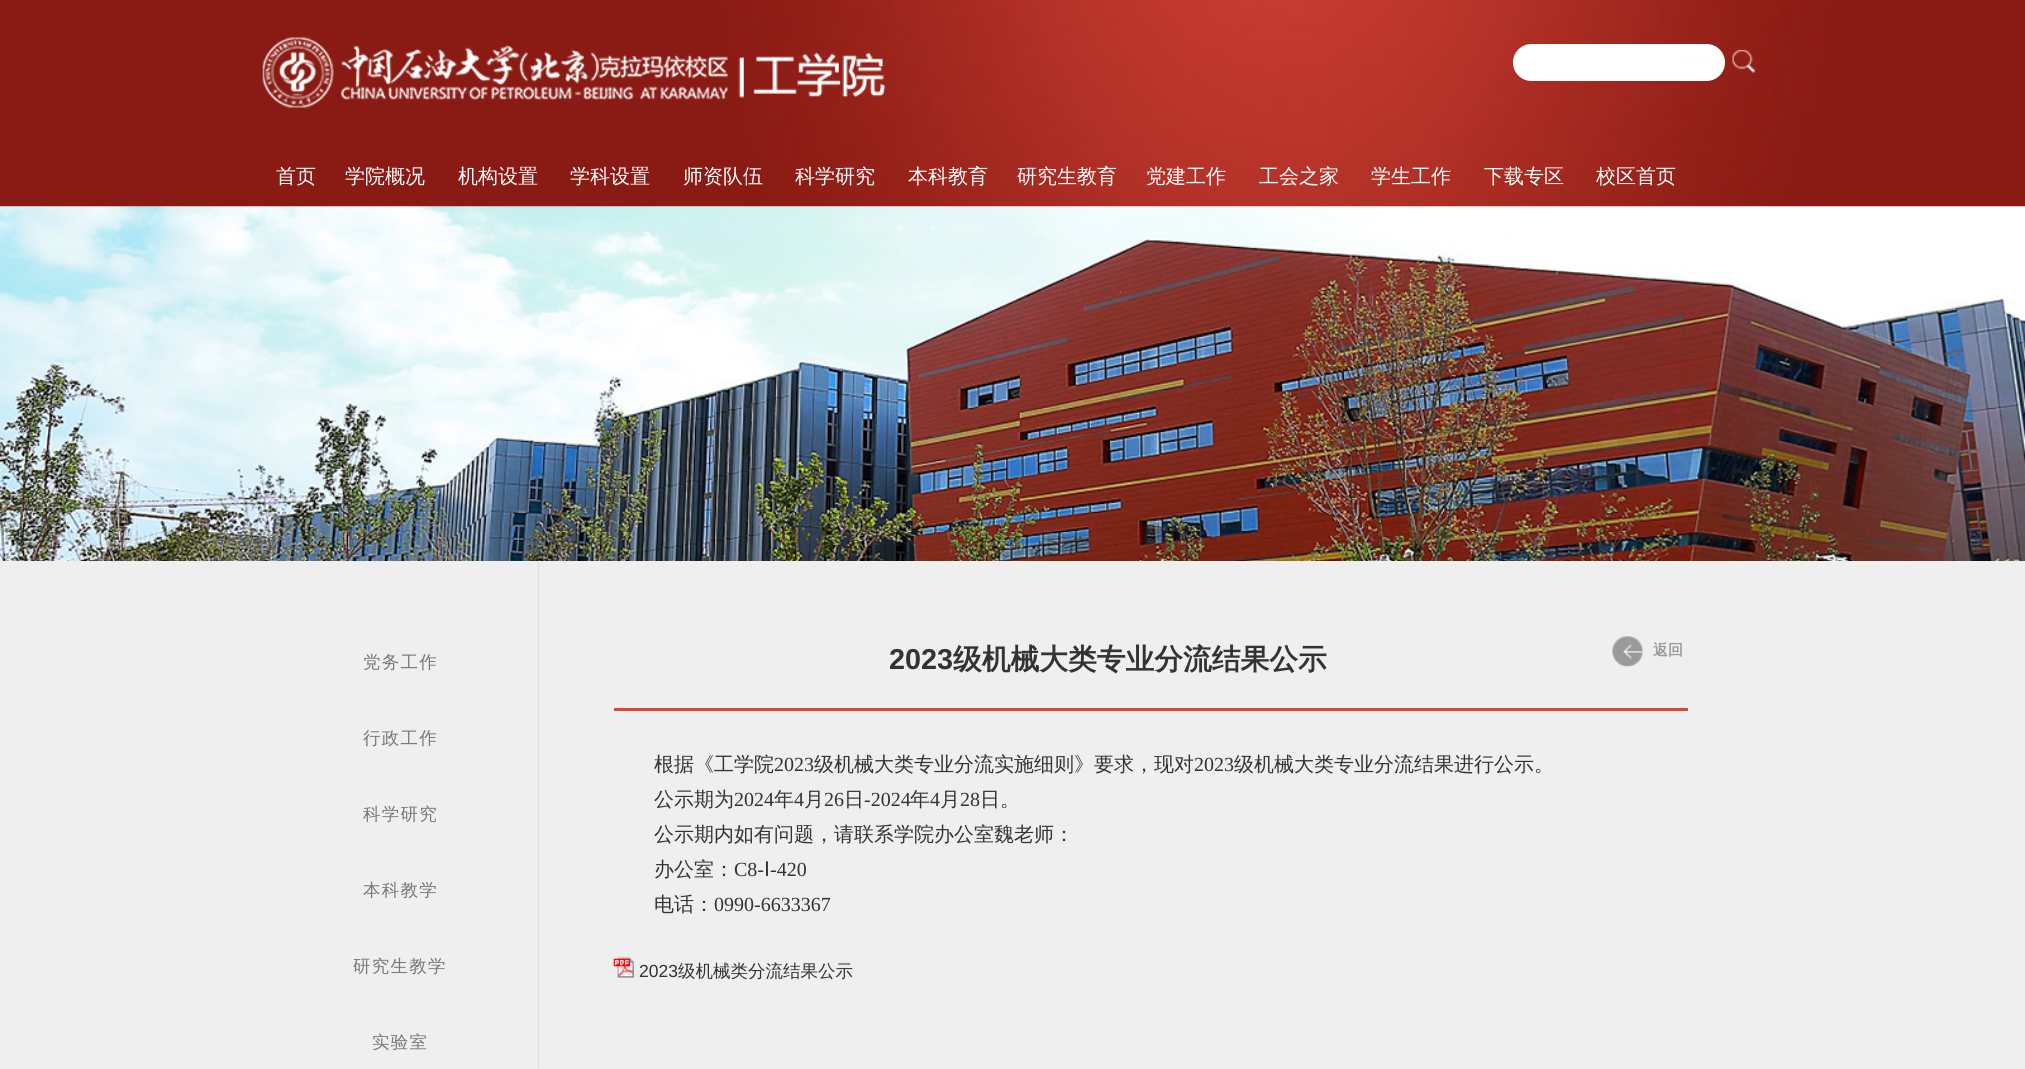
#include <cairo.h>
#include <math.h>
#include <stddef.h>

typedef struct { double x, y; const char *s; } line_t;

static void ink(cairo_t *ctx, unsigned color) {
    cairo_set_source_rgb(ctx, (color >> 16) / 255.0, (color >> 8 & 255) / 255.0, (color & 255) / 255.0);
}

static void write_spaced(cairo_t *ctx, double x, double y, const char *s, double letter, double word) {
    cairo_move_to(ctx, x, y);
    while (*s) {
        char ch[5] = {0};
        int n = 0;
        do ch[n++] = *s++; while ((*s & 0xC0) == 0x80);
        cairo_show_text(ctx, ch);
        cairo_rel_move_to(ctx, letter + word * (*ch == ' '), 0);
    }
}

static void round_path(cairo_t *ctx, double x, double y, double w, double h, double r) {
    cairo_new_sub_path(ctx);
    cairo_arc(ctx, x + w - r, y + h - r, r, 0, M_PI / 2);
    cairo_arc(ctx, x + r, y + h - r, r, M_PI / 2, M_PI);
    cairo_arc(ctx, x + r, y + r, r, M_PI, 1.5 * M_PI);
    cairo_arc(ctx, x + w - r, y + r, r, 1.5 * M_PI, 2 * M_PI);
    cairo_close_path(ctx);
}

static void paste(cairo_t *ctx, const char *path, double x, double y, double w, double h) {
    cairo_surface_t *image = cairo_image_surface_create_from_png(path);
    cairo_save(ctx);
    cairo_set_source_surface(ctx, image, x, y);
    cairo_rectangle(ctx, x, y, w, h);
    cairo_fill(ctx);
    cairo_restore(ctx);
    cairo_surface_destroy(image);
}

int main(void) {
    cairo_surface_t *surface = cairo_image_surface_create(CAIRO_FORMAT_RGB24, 2025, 1069);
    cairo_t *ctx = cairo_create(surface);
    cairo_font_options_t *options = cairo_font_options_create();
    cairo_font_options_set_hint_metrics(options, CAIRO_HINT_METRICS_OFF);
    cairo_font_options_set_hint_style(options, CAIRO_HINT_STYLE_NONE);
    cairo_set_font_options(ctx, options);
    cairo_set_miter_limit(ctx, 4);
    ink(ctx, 0xFFFFFF);
    cairo_paint(ctx);
    paste(ctx, "media/4.png", 0, 206, 2025, 355);
    paste(ctx, "media/1.png", 0, 0, 2025, 207);
    paste(ctx, "media/2.png", 262, 37, 624, 71);
    ink(ctx, 0xFFFFFF);
    round_path(ctx, 1513, 44, 212, 37, 18.5);
    cairo_fill(ctx);
    paste(ctx, "media/3.png", 1732, 50, 23, 23);
    cairo_select_font_face(ctx, "WenQuanYi Zen Hei Medium", CAIRO_FONT_SLANT_NORMAL, CAIRO_FONT_WEIGHT_NORMAL);
    cairo_set_font_size(ctx, 20);
    {
        static const line_t items[] = {
            {276, 183, "首页"},
            {345, 183, "学院概况"},
            {458, 183, "机构设置"},
            {570, 183, "学科设置"},
            {683, 183, "师资队伍"},
            {795, 183, "科学研究"},
            {908, 183, "本科教育"},
            {1017, 183, "研究生教育"},
            {1146, 183, "党建工作"},
            {1259, 183, "工会之家"},
            {1371, 183, "学生工作"},
            {1484, 183, "下载专区"},
            {1596, 183, "校区首页"},
        };
        for (size_t i = 0; i < sizeof items / sizeof *items; i++) {
            cairo_move_to(ctx, items[i].x, items[i].y);
            cairo_show_text(ctx, items[i].s);
        }
    }
    ink(ctx, 0xEFEFEF);
    cairo_rectangle(ctx, 0, 561, 2025, 508);
    cairo_fill(ctx);
    cairo_set_font_size(ctx, 17.5);
    ink(ctx, 0x777777);
    {
        static const line_t items[] = {
            {363, 668, "党务工作"},
            {363, 744, "行政工作"},
            {363, 820, "科学研究"},
            {363, 896, "本科教学"},
            {353, 972, "研究生教学"},
            {372, 1048, "实验室"},
        };
        for (size_t i = 0; i < sizeof items / sizeof *items; i++) {
            write_spaced(ctx, items[i].x, items[i].y, items[i].s, 1.25, 0);
        }
    }
    ink(ctx, 0xDDDDDD);
    cairo_rectangle(ctx, 538, 561, 1, 508);
    cairo_fill(ctx);
    ink(ctx, 0xD9473C);
    cairo_rectangle(ctx, 614, 708, 1074, 3);
    cairo_fill(ctx);
    cairo_select_font_face(ctx, "Liberation Sans", CAIRO_FONT_SLANT_NORMAL, CAIRO_FONT_WEIGHT_BOLD);
    cairo_set_font_size(ctx, 28.75);
    ink(ctx, 0x333333);
    cairo_move_to(ctx, 889, 669);
    cairo_show_text(ctx, "2023");
    cairo_select_font_face(ctx, "WenQuanYi Zen Hei", CAIRO_FONT_SLANT_NORMAL, CAIRO_FONT_WEIGHT_BOLD);
    cairo_move_to(ctx, 953, 669);
    cairo_show_text(ctx, "级机械大类专业分流结果公示");
    paste(ctx, "media/5.png", 1612, 636, 31, 31);
    cairo_set_font_size(ctx, 15);
    ink(ctx, 0x9A9A9A);
    cairo_move_to(ctx, 1653, 655);
    cairo_show_text(ctx, "返回");
    cairo_select_font_face(ctx, "WenQuanYi Zen Hei Medium", CAIRO_FONT_SLANT_NORMAL, CAIRO_FONT_WEIGHT_NORMAL);
    cairo_set_font_size(ctx, 20);
    ink(ctx, 0x333333);
    cairo_move_to(ctx, 654, 771);
    cairo_show_text(ctx, "根据《工学院");
    cairo_select_font_face(ctx, "Liberation Serif", CAIRO_FONT_SLANT_NORMAL, CAIRO_FONT_WEIGHT_NORMAL);
    cairo_move_to(ctx, 774, 771);
    cairo_show_text(ctx, "2023");
    cairo_select_font_face(ctx, "WenQuanYi Zen Hei Medium", CAIRO_FONT_SLANT_NORMAL, CAIRO_FONT_WEIGHT_NORMAL);
    cairo_move_to(ctx, 814, 771);
    cairo_show_text(ctx, "级机械大类专业分流实施细则》要求，现对");
    cairo_select_font_face(ctx, "Liberation Serif", CAIRO_FONT_SLANT_NORMAL, CAIRO_FONT_WEIGHT_NORMAL);
    cairo_move_to(ctx, 1194, 771);
    cairo_show_text(ctx, "2023");
    cairo_select_font_face(ctx, "WenQuanYi Zen Hei Medium", CAIRO_FONT_SLANT_NORMAL, CAIRO_FONT_WEIGHT_NORMAL);
    cairo_move_to(ctx, 1234, 771);
    cairo_show_text(ctx, "级机械大类专业分流结果进行公示。");
    cairo_move_to(ctx, 654, 806);
    cairo_show_text(ctx, "公示期为");
    cairo_select_font_face(ctx, "Liberation Serif", CAIRO_FONT_SLANT_NORMAL, CAIRO_FONT_WEIGHT_NORMAL);
    cairo_move_to(ctx, 734, 806);
    cairo_show_text(ctx, "2024");
    cairo_select_font_face(ctx, "WenQuanYi Zen Hei Medium", CAIRO_FONT_SLANT_NORMAL, CAIRO_FONT_WEIGHT_NORMAL);
    cairo_move_to(ctx, 774, 806);
    cairo_show_text(ctx, "年");
    cairo_select_font_face(ctx, "Liberation Serif", CAIRO_FONT_SLANT_NORMAL, CAIRO_FONT_WEIGHT_NORMAL);
    cairo_move_to(ctx, 794, 806);
    cairo_show_text(ctx, "4");
    cairo_select_font_face(ctx, "WenQuanYi Zen Hei Medium", CAIRO_FONT_SLANT_NORMAL, CAIRO_FONT_WEIGHT_NORMAL);
    cairo_move_to(ctx, 804, 806);
    cairo_show_text(ctx, "月");
    cairo_select_font_face(ctx, "Liberation Serif", CAIRO_FONT_SLANT_NORMAL, CAIRO_FONT_WEIGHT_NORMAL);
    cairo_move_to(ctx, 824, 806);
    cairo_show_text(ctx, "26");
    cairo_select_font_face(ctx, "WenQuanYi Zen Hei Medium", CAIRO_FONT_SLANT_NORMAL, CAIRO_FONT_WEIGHT_NORMAL);
    cairo_move_to(ctx, 844, 806);
    cairo_show_text(ctx, "日");
    cairo_select_font_face(ctx, "Liberation Serif", CAIRO_FONT_SLANT_NORMAL, CAIRO_FONT_WEIGHT_NORMAL);
    cairo_move_to(ctx, 864, 806);
    cairo_show_text(ctx, "-2024");
    cairo_select_font_face(ctx, "WenQuanYi Zen Hei Medium", CAIRO_FONT_SLANT_NORMAL, CAIRO_FONT_WEIGHT_NORMAL);
    cairo_move_to(ctx, 910, 806);
    cairo_show_text(ctx, "年");
    cairo_select_font_face(ctx, "Liberation Serif", CAIRO_FONT_SLANT_NORMAL, CAIRO_FONT_WEIGHT_NORMAL);
    cairo_move_to(ctx, 930, 806);
    cairo_show_text(ctx, "4");
    cairo_select_font_face(ctx, "WenQuanYi Zen Hei Medium", CAIRO_FONT_SLANT_NORMAL, CAIRO_FONT_WEIGHT_NORMAL);
    cairo_move_to(ctx, 940, 806);
    cairo_show_text(ctx, "月");
    cairo_select_font_face(ctx, "Liberation Serif", CAIRO_FONT_SLANT_NORMAL, CAIRO_FONT_WEIGHT_NORMAL);
    cairo_move_to(ctx, 960, 806);
    cairo_show_text(ctx, "28");
    cairo_select_font_face(ctx, "WenQuanYi Zen Hei Medium", CAIRO_FONT_SLANT_NORMAL, CAIRO_FONT_WEIGHT_NORMAL);
    {
        static const line_t items[] = {
            {980, 806, "日。"},
            {654, 841, "公示期内如有问题，请联系学院办公室魏老师："},
            {654, 876, "办公室："},
        };
        for (size_t i = 0; i < sizeof items / sizeof *items; i++) {
            cairo_move_to(ctx, items[i].x, items[i].y);
            cairo_show_text(ctx, items[i].s);
        }
    }
    cairo_select_font_face(ctx, "Liberation Serif", CAIRO_FONT_SLANT_NORMAL, CAIRO_FONT_WEIGHT_NORMAL);
    cairo_move_to(ctx, 734, 876);
    cairo_show_text(ctx, "C8-");
    cairo_select_font_face(ctx, "DejaVu Sans", CAIRO_FONT_SLANT_NORMAL, CAIRO_FONT_WEIGHT_NORMAL);
    cairo_move_to(ctx, 764, 876);
    cairo_show_text(ctx, "Ⅰ");
    cairo_select_font_face(ctx, "Liberation Serif", CAIRO_FONT_SLANT_NORMAL, CAIRO_FONT_WEIGHT_NORMAL);
    cairo_move_to(ctx, 770, 876);
    cairo_show_text(ctx, "-420");
    cairo_select_font_face(ctx, "WenQuanYi Zen Hei Medium", CAIRO_FONT_SLANT_NORMAL, CAIRO_FONT_WEIGHT_NORMAL);
    cairo_move_to(ctx, 654, 911);
    cairo_show_text(ctx, "电话：");
    cairo_select_font_face(ctx, "Liberation Serif", CAIRO_FONT_SLANT_NORMAL, CAIRO_FONT_WEIGHT_NORMAL);
    cairo_move_to(ctx, 714, 911);
    cairo_show_text(ctx, "0990-6633367");
    paste(ctx, "media/6.png", 613, 957, 21, 21);
    cairo_select_font_face(ctx, "Liberation Sans", CAIRO_FONT_SLANT_NORMAL, CAIRO_FONT_WEIGHT_NORMAL);
    cairo_set_font_size(ctx, 17.5);
    cairo_move_to(ctx, 639, 977);
    cairo_show_text(ctx, "2023");
    cairo_select_font_face(ctx, "WenQuanYi Zen Hei Medium", CAIRO_FONT_SLANT_NORMAL, CAIRO_FONT_WEIGHT_NORMAL);
    cairo_move_to(ctx, 678, 977);
    cairo_show_text(ctx, "级机械类分流结果公示");
    cairo_surface_write_to_png(surface, "image.png");
    cairo_font_options_destroy(options);
    cairo_destroy(ctx);
    cairo_surface_destroy(surface);
    return 0;
}
